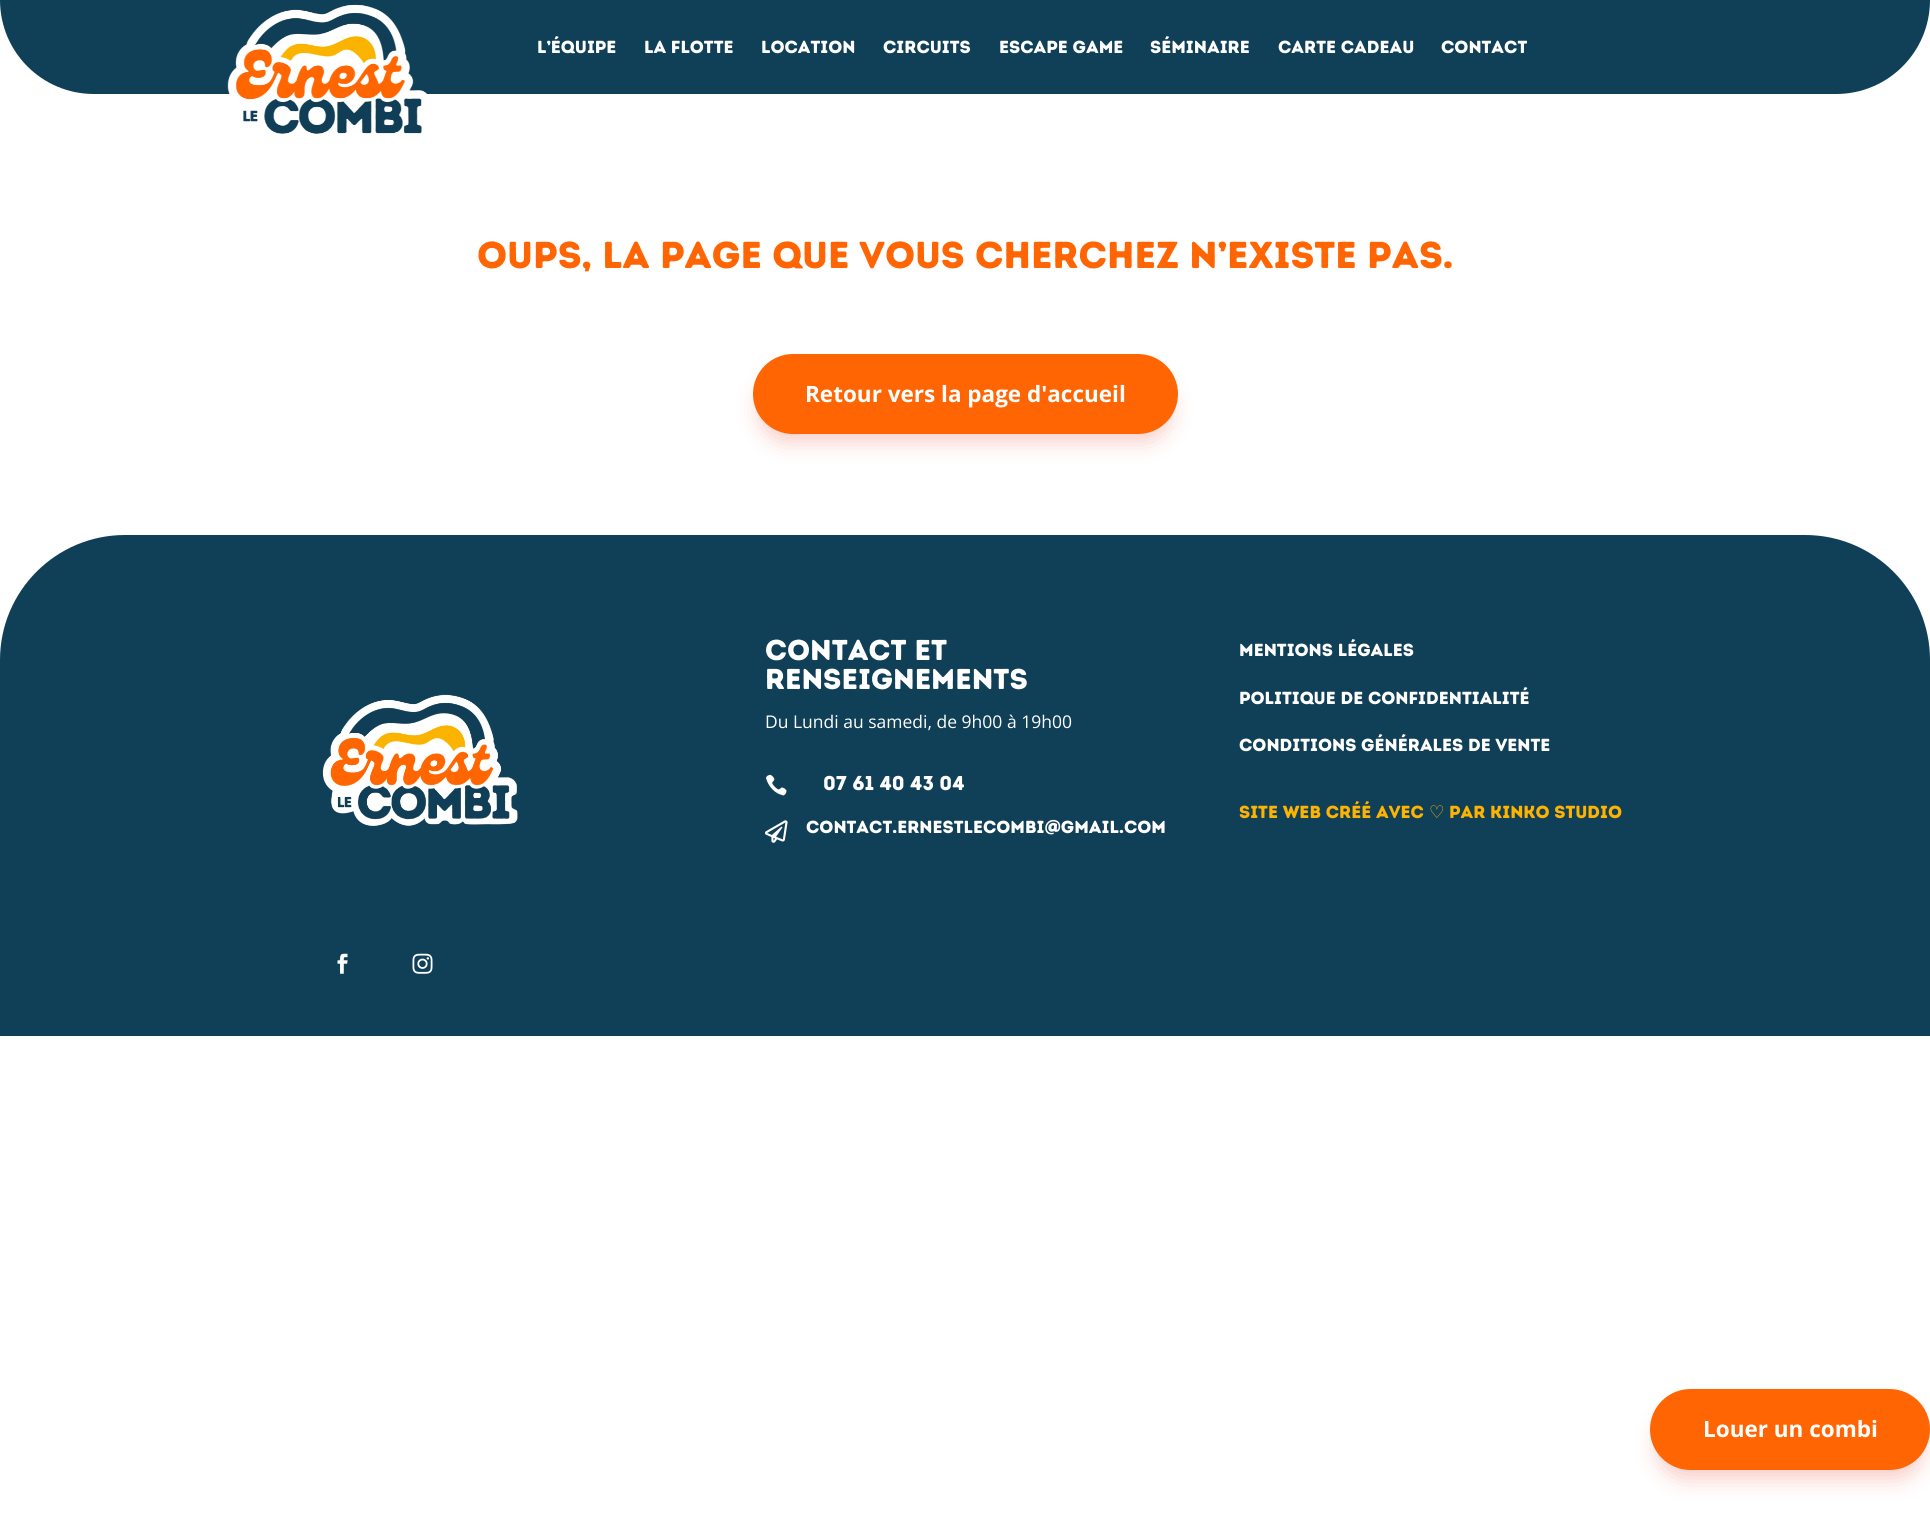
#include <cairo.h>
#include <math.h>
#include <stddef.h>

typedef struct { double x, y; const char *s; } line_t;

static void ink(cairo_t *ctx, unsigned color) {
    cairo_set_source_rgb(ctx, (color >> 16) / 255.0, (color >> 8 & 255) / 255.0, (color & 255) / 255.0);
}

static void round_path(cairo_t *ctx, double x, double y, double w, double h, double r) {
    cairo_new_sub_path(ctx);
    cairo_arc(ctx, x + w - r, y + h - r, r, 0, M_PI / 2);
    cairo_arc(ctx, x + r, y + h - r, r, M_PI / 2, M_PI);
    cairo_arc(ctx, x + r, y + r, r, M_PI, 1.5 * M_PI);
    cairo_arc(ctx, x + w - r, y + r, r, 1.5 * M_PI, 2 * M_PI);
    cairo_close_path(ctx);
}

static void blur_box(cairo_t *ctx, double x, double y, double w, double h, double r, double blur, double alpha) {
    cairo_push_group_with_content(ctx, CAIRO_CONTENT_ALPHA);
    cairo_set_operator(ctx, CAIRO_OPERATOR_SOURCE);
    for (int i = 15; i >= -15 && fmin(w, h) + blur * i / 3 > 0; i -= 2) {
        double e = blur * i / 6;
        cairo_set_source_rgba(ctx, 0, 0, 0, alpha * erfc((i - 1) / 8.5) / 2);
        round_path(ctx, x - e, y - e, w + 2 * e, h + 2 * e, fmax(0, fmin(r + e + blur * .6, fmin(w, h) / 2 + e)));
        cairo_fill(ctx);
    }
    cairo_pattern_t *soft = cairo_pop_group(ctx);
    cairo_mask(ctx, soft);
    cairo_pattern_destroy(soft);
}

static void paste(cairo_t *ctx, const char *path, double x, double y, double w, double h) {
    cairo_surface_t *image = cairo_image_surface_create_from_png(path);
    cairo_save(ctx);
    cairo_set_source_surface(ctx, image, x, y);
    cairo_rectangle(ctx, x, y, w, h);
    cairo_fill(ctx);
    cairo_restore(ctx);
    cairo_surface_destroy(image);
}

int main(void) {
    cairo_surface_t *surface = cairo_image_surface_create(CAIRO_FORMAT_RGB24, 1930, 1522);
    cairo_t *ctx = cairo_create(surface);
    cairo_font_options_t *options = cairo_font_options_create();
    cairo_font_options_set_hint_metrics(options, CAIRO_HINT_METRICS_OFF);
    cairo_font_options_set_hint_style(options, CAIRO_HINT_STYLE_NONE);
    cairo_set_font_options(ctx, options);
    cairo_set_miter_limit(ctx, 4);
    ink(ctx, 0xFFFFFF);
    cairo_paint(ctx);
    ink(ctx, 0x103F58);
    cairo_new_path(ctx);
    cairo_move_to(ctx, 0, 0);
    cairo_line_to(ctx, 1930, 0);
    cairo_curve_to(ctx, 1930, 52, 1888, 94, 1836, 94);
    cairo_line_to(ctx, 94, 94);
    cairo_curve_to(ctx, 42, 94, 0, 52, 0, 0);
    cairo_close_path(ctx);
    cairo_fill(ctx);
    paste(ctx, "media/1.png", 227, 4, 201, 130);
    cairo_select_font_face(ctx, "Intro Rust", CAIRO_FONT_SLANT_NORMAL, CAIRO_FONT_WEIGHT_NORMAL);
    cairo_set_font_size(ctx, 17.5);
    ink(ctx, 0xFFFFFF);
    {
        static const line_t items[] = {
            {537, 53, "L’équipe"},
            {644, 53, "La flotte"},
            {761, 53, "Location"},
            {883, 53, "Circuits"},
            {999, 53, "Escape Game"},
            {1150, 53, "Séminaire"},
            {1278, 53, "Carte Cadeau"},
            {1441, 53, "Contact"},
        };
        for (size_t i = 0; i < sizeof items / sizeof *items; i++) {
            cairo_move_to(ctx, items[i].x, items[i].y);
            cairo_show_text(ctx, items[i].s);
        }
    }
    ink(ctx, 0xEE6A5B);
    blur_box(ctx, 1658, 1411, 265, 67, 33.5, 11, 0.36);
    ink(ctx, 0xFF6503);
    round_path(ctx, 1650, 1389, 280, 81, 40.5);
    cairo_fill(ctx);
    cairo_select_font_face(ctx, "Open Sans", CAIRO_FONT_SLANT_NORMAL, CAIRO_FONT_WEIGHT_BOLD);
    cairo_set_font_size(ctx, 22.5);
    ink(ctx, 0xFFFFFF);
    cairo_move_to(ctx, 1703, 1437);
    cairo_show_text(ctx, "Louer un combi");
    cairo_select_font_face(ctx, "Intro Rust", CAIRO_FONT_SLANT_NORMAL, CAIRO_FONT_WEIGHT_NORMAL);
    cairo_set_font_size(ctx, 37.5);
    ink(ctx, 0xFF6503);
    cairo_move_to(ctx, 477, 268);
    cairo_show_text(ctx, "Oups, la page que vous cherchez n’existe pas.");
    ink(ctx, 0xEE6A5B);
    blur_box(ctx, 760, 376, 410, 65, 32.5, 11, 0.36);
    ink(ctx, 0xFF6503);
    round_path(ctx, 753, 354, 425, 80, 40);
    cairo_fill(ctx);
    cairo_select_font_face(ctx, "Open Sans", CAIRO_FONT_SLANT_NORMAL, CAIRO_FONT_WEIGHT_BOLD);
    cairo_set_font_size(ctx, 22.5);
    ink(ctx, 0xFFFFFF);
    cairo_move_to(ctx, 805, 402);
    cairo_show_text(ctx, "Retour vers la page d'accueil");
    ink(ctx, 0x103F58);
    cairo_new_path(ctx);
    cairo_move_to(ctx, 125, 535);
    cairo_line_to(ctx, 1805, 535);
    cairo_curve_to(ctx, 1874, 535, 1930, 591, 1930, 660);
    cairo_line_to(ctx, 1930, 1036);
    cairo_line_to(ctx, 0, 1036);
    cairo_line_to(ctx, 0, 660);
    cairo_curve_to(ctx, 0, 591, 56, 535, 125, 535);
    cairo_close_path(ctx);
    cairo_fill(ctx);
    paste(ctx, "media/2.png", 322, 694, 196, 132);
    paste(ctx, "media/3.png", 337, 953, 11, 21);
    paste(ctx, "media/4.png", 412, 953, 21, 21);
    cairo_select_font_face(ctx, "Intro Rust", CAIRO_FONT_SLANT_NORMAL, CAIRO_FONT_WEIGHT_NORMAL);
    cairo_set_font_size(ctx, 28.75);
    ink(ctx, 0xFFFFFF);
    cairo_move_to(ctx, 765, 660);
    cairo_show_text(ctx, "Contact et");
    cairo_move_to(ctx, 765, 689);
    cairo_show_text(ctx, "renseignements");
    cairo_select_font_face(ctx, "Open Sans", CAIRO_FONT_SLANT_NORMAL, CAIRO_FONT_WEIGHT_NORMAL);
    cairo_set_font_size(ctx, 17.5);
    cairo_move_to(ctx, 765, 728);
    cairo_show_text(ctx, "Du Lundi au samedi, de 9h00 à 19h00");
    paste(ctx, "media/5.png", 766, 774, 21, 22);
    cairo_select_font_face(ctx, "Intro Rust", CAIRO_FONT_SLANT_NORMAL, CAIRO_FONT_WEIGHT_NORMAL);
    cairo_set_font_size(ctx, 20);
    cairo_move_to(ctx, 823, 790);
    cairo_show_text(ctx, "07 61 40 43 04");
    paste(ctx, "media/6.png", 765, 820, 23, 23);
    cairo_set_font_size(ctx, 17.5);
    {
        static const line_t items[] = {
            {806, 833, "contact.ernestlecombi@gmail.com"},
            {1239, 656, "Mentions légales"},
            {1239, 704, "Politique de confidentialité"},
            {1239, 751, "Conditions générales de vente"},
        };
        for (size_t i = 0; i < sizeof items / sizeof *items; i++) {
            cairo_move_to(ctx, items[i].x, items[i].y);
            cairo_show_text(ctx, items[i].s);
        }
    }
    ink(ctx, 0xFCB301);
    cairo_move_to(ctx, 1239, 818);
    cairo_show_text(ctx, "Site web créé avec");
    cairo_select_font_face(ctx, "DejaVu Sans", CAIRO_FONT_SLANT_NORMAL, CAIRO_FONT_WEIGHT_NORMAL);
    cairo_move_to(ctx, 1429, 818);
    cairo_show_text(ctx, "♡");
    cairo_select_font_face(ctx, "Intro Rust", CAIRO_FONT_SLANT_NORMAL, CAIRO_FONT_WEIGHT_NORMAL);
    cairo_move_to(ctx, 1449, 818);
    cairo_show_text(ctx, "par Kinko studio");
    cairo_surface_write_to_png(surface, "image.png");
    cairo_font_options_destroy(options);
    cairo_destroy(ctx);
    cairo_surface_destroy(surface);
    return 0;
}
